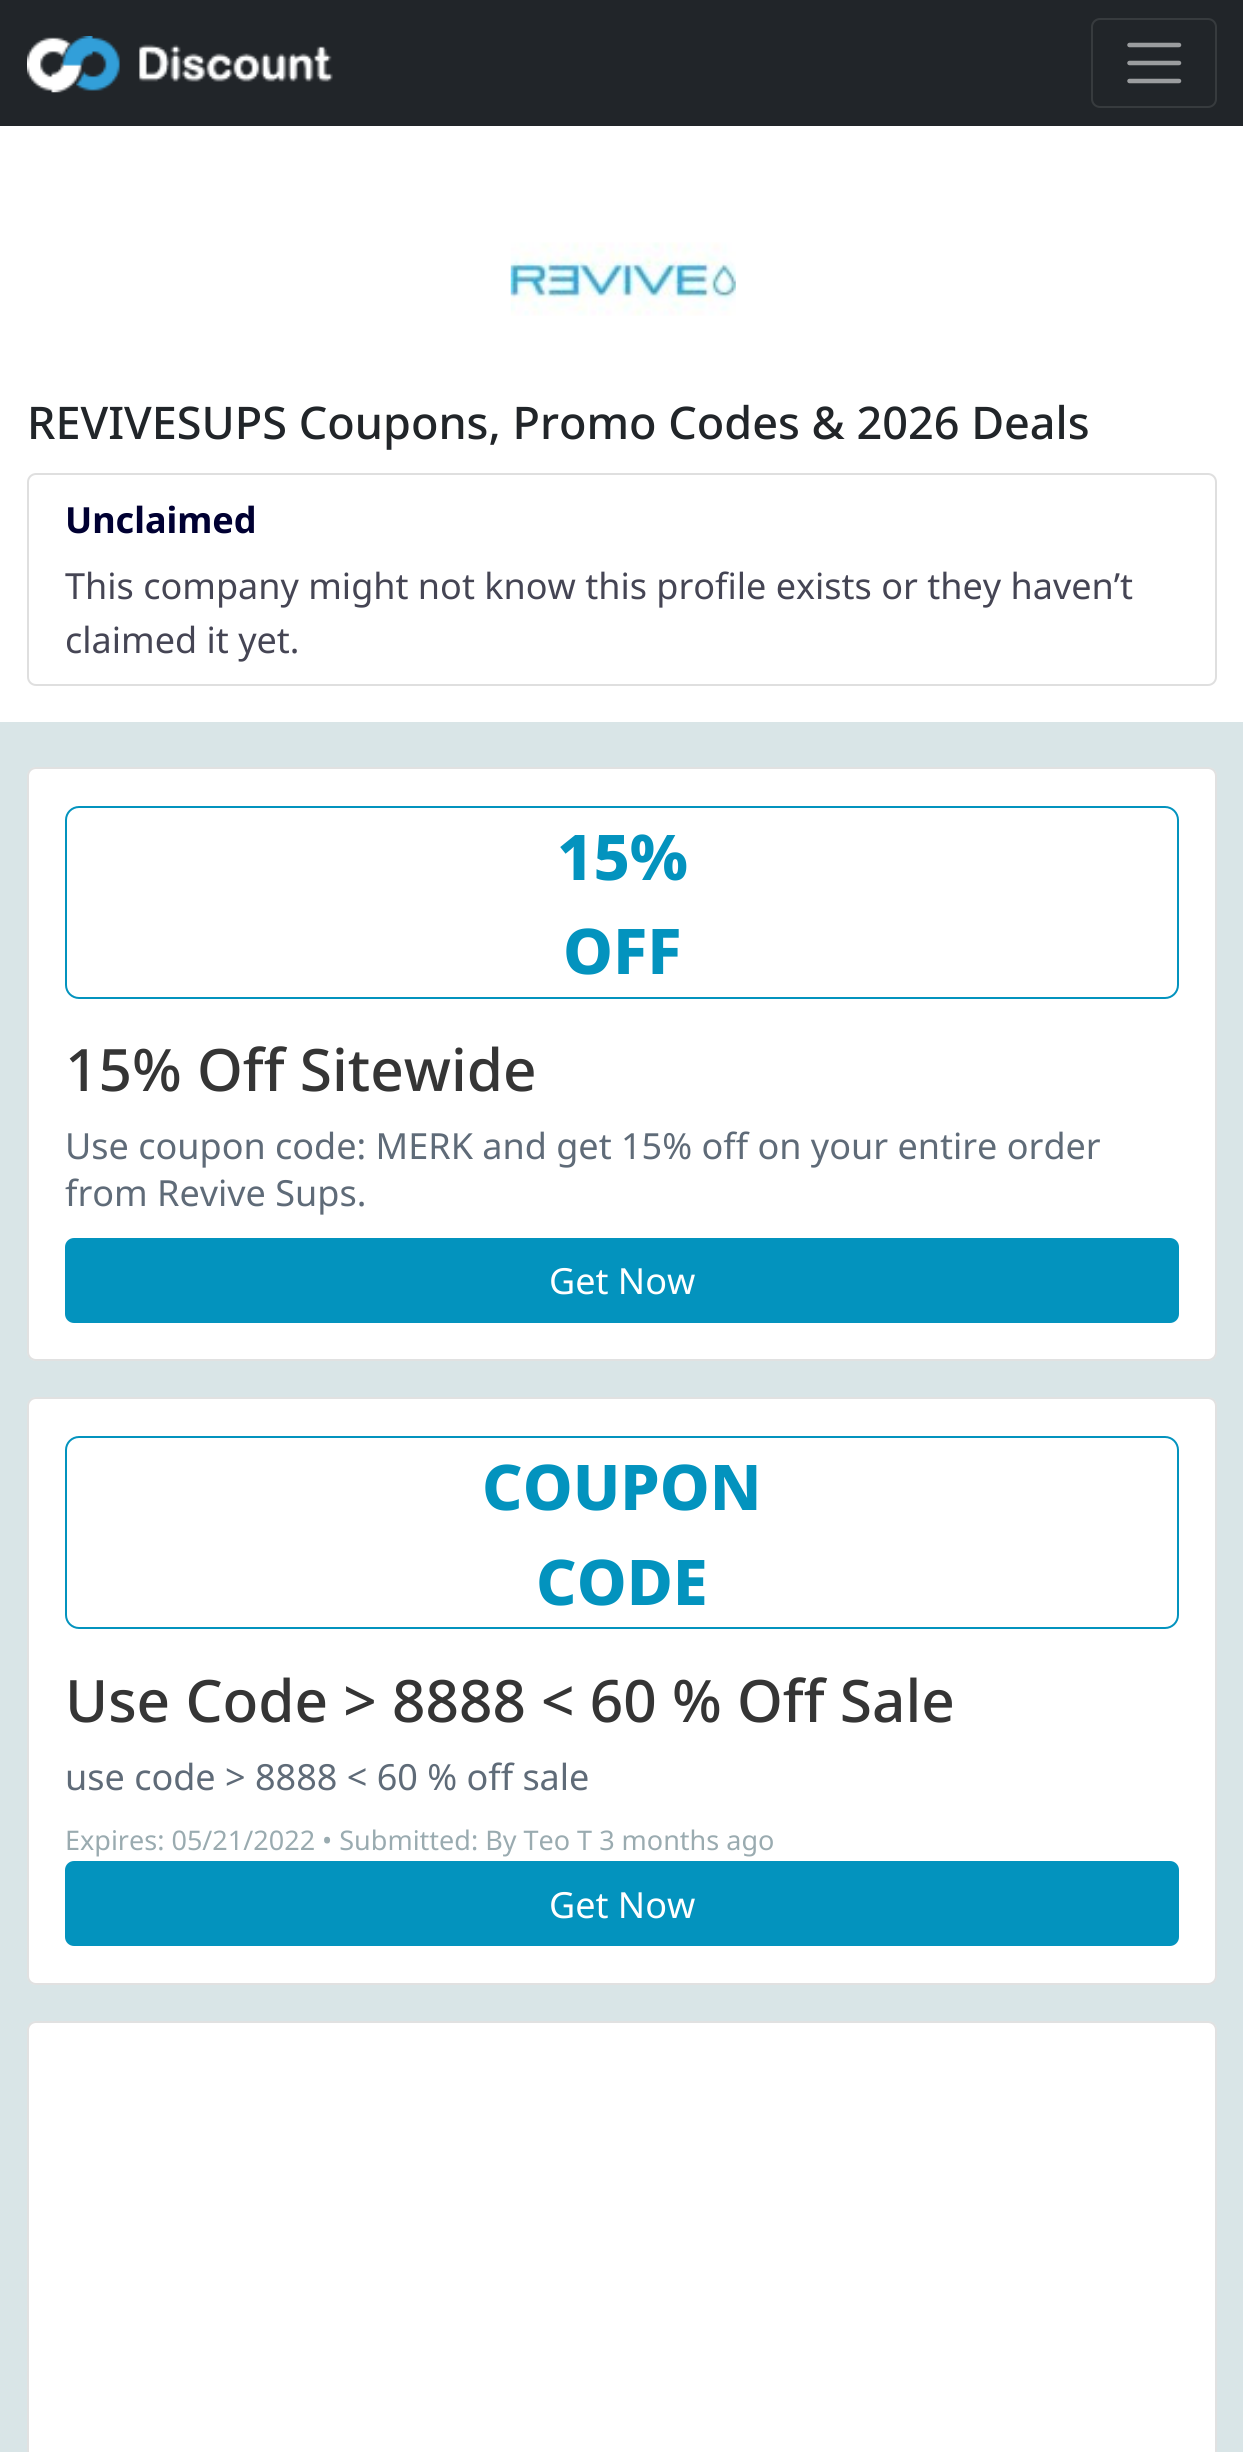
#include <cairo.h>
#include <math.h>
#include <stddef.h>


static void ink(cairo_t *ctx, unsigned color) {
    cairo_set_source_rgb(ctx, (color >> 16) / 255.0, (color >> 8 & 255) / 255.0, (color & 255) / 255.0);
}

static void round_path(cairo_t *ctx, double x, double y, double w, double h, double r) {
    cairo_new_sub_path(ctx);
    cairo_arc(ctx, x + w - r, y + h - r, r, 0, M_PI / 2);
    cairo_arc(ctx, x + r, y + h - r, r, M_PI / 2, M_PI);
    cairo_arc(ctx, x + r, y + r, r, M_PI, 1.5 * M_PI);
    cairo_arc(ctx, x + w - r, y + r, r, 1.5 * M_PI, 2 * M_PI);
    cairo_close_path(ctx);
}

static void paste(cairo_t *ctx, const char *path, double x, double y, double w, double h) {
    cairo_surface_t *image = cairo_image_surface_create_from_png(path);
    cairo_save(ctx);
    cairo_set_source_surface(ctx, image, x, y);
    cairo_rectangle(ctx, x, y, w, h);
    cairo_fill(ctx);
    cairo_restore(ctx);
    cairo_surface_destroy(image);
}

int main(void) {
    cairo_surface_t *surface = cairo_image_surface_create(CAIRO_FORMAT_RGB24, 1243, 2452);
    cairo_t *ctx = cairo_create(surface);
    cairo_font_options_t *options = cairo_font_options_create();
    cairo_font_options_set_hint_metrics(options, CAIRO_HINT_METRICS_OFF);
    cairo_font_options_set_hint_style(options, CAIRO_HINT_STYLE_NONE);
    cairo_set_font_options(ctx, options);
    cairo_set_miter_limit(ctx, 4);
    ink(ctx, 0xD9E5E7);
    cairo_paint(ctx);
    ink(ctx, 0x212529);
    cairo_rectangle(ctx, 0, 0, 1243, 126);
    cairo_fill(ctx);
    paste(ctx, "media/1.png", 27, 36, 306, 57);
    round_path(ctx, 1092, 19, 124, 88, 8);
    ink(ctx, 0x373B3E);
    cairo_stroke(ctx);
    cairo_new_path(ctx);
    cairo_move_to(ctx, 1129.5, 45);
    cairo_line_to(ctx, 1179, 45);
    cairo_move_to(ctx, 1129.5, 63);
    cairo_line_to(ctx, 1179, 63);
    cairo_move_to(ctx, 1129.5, 81);
    cairo_line_to(ctx, 1179, 81);
    ink(ctx, 0x9B9D9F);
    cairo_set_line_width(ctx, 4.5);
    cairo_set_line_cap(ctx, CAIRO_LINE_CAP_ROUND);
    cairo_stroke(ctx);
    ink(ctx, 0xFFFFFF);
    cairo_rectangle(ctx, 0, 126, 1243, 596);
    cairo_fill(ctx);
    paste(ctx, "media/2.png", 510, 242, 226, 74);
    cairo_select_font_face(ctx, "Noto Sans Medium", CAIRO_FONT_SLANT_NORMAL, CAIRO_FONT_WEIGHT_NORMAL);
    cairo_set_font_size(ctx, 45);
    ink(ctx, 0x212529);
    cairo_move_to(ctx, 27, 439);
    cairo_show_text(ctx, "REVIVESUPS Coupons, Promo Codes & 2026 Deals");
    round_path(ctx, 28, 474, 1188, 211, 8);
    ink(ctx, 0xDFDFDF);
    cairo_set_line_width(ctx, 2);
    cairo_set_line_cap(ctx, CAIRO_LINE_CAP_BUTT);
    cairo_stroke(ctx);
    cairo_select_font_face(ctx, "Noto Sans", CAIRO_FONT_SLANT_NORMAL, CAIRO_FONT_WEIGHT_BOLD);
    cairo_set_font_size(ctx, 36);
    ink(ctx, 0x000032);
    cairo_move_to(ctx, 65, 533);
    cairo_show_text(ctx, "Unclaimed");
    cairo_select_font_face(ctx, "Noto Sans", CAIRO_FONT_SLANT_NORMAL, CAIRO_FONT_WEIGHT_NORMAL);
    ink(ctx, 0x454554);
    cairo_move_to(ctx, 65, 599);
    cairo_show_text(ctx, "This company might not know this profile exists or they haven’t");
    cairo_move_to(ctx, 65, 653);
    cairo_show_text(ctx, "claimed it yet.");
    ink(ctx, 0xFFFFFF);
    round_path(ctx, 27, 767, 1190, 594, 9);
    cairo_fill(ctx);
    round_path(ctx, 28, 768, 1188, 592, 8);
    cairo_set_source_rgba(ctx, 0, 0, 0, 0.12);
    cairo_stroke(ctx);
    round_path(ctx, 66, 807, 1112, 191, 13);
    ink(ctx, 0x0393BE);
    cairo_stroke(ctx);
    cairo_select_font_face(ctx, "Noto Sans ExtraBold", CAIRO_FONT_SLANT_NORMAL, CAIRO_FONT_WEIGHT_NORMAL);
    cairo_set_font_size(ctx, 63);
    cairo_move_to(ctx, 557, 880);
    cairo_show_text(ctx, "15%");
    cairo_move_to(ctx, 563, 974);
    cairo_show_text(ctx, "OFF");
    cairo_select_font_face(ctx, "Noto Sans Medium", CAIRO_FONT_SLANT_NORMAL, CAIRO_FONT_WEIGHT_NORMAL);
    cairo_set_font_size(ctx, 58.5);
    ink(ctx, 0x353535);
    cairo_move_to(ctx, 65, 1091);
    cairo_show_text(ctx, "15% Off Sitewide");
    cairo_select_font_face(ctx, "Noto Sans", CAIRO_FONT_SLANT_NORMAL, CAIRO_FONT_WEIGHT_NORMAL);
    cairo_set_font_size(ctx, 36);
    ink(ctx, 0x5F6B78);
    cairo_move_to(ctx, 65, 1159);
    cairo_show_text(ctx, "Use coupon code: MERK and get 15% off on your entire order");
    cairo_move_to(ctx, 65, 1206);
    cairo_show_text(ctx, "from Revive Sups.");
    ink(ctx, 0x0393BE);
    round_path(ctx, 66, 1239, 1112, 83, 8);
    cairo_fill_preserve(ctx);
    cairo_stroke(ctx);
    ink(ctx, 0xFFFFFF);
    cairo_move_to(ctx, 549, 1294);
    cairo_show_text(ctx, "Get Now");
    round_path(ctx, 27, 1397, 1190, 588, 9);
    cairo_fill(ctx);
    round_path(ctx, 28, 1398, 1188, 586, 8);
    cairo_set_source_rgba(ctx, 0, 0, 0, 0.12);
    cairo_stroke(ctx);
    round_path(ctx, 66, 1437, 1112, 191, 13);
    ink(ctx, 0x0393BE);
    cairo_stroke(ctx);
    cairo_select_font_face(ctx, "Noto Sans ExtraBold", CAIRO_FONT_SLANT_NORMAL, CAIRO_FONT_WEIGHT_NORMAL);
    cairo_set_font_size(ctx, 63);
    cairo_move_to(ctx, 482, 1510);
    cairo_show_text(ctx, "COUPON");
    cairo_move_to(ctx, 536, 1605);
    cairo_show_text(ctx, "CODE");
    cairo_select_font_face(ctx, "Noto Sans Medium", CAIRO_FONT_SLANT_NORMAL, CAIRO_FONT_WEIGHT_NORMAL);
    cairo_set_font_size(ctx, 58.5);
    ink(ctx, 0x353535);
    cairo_move_to(ctx, 65, 1722);
    cairo_show_text(ctx, "Use Code > 8888 < 60 % Off Sale");
    cairo_select_font_face(ctx, "Noto Sans", CAIRO_FONT_SLANT_NORMAL, CAIRO_FONT_WEIGHT_NORMAL);
    cairo_set_font_size(ctx, 36);
    ink(ctx, 0x5F6B78);
    cairo_move_to(ctx, 65, 1790);
    cairo_show_text(ctx, "use code > 8888 < 60 % off sale");
    cairo_set_font_size(ctx, 27);
    ink(ctx, 0x9AABB0);
    cairo_move_to(ctx, 65, 1850);
    cairo_show_text(ctx, "Expires: 05/21/2022 • Submitted: By Teo T 3 months ago");
    ink(ctx, 0x0393BE);
    round_path(ctx, 66, 1862, 1112, 83, 8);
    cairo_fill_preserve(ctx);
    cairo_stroke(ctx);
    cairo_set_font_size(ctx, 36);
    ink(ctx, 0xFFFFFF);
    cairo_move_to(ctx, 549, 1918);
    cairo_show_text(ctx, "Get Now");
    round_path(ctx, 27, 2021, 1190, 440, 9);
    cairo_fill(ctx);
    round_path(ctx, 28, 2022, 1188, 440, 8);
    cairo_set_source_rgba(ctx, 0, 0, 0, 0.12);
    cairo_stroke(ctx);
    cairo_surface_write_to_png(surface, "image.png");
    cairo_font_options_destroy(options);
    cairo_destroy(ctx);
    cairo_surface_destroy(surface);
    return 0;
}
